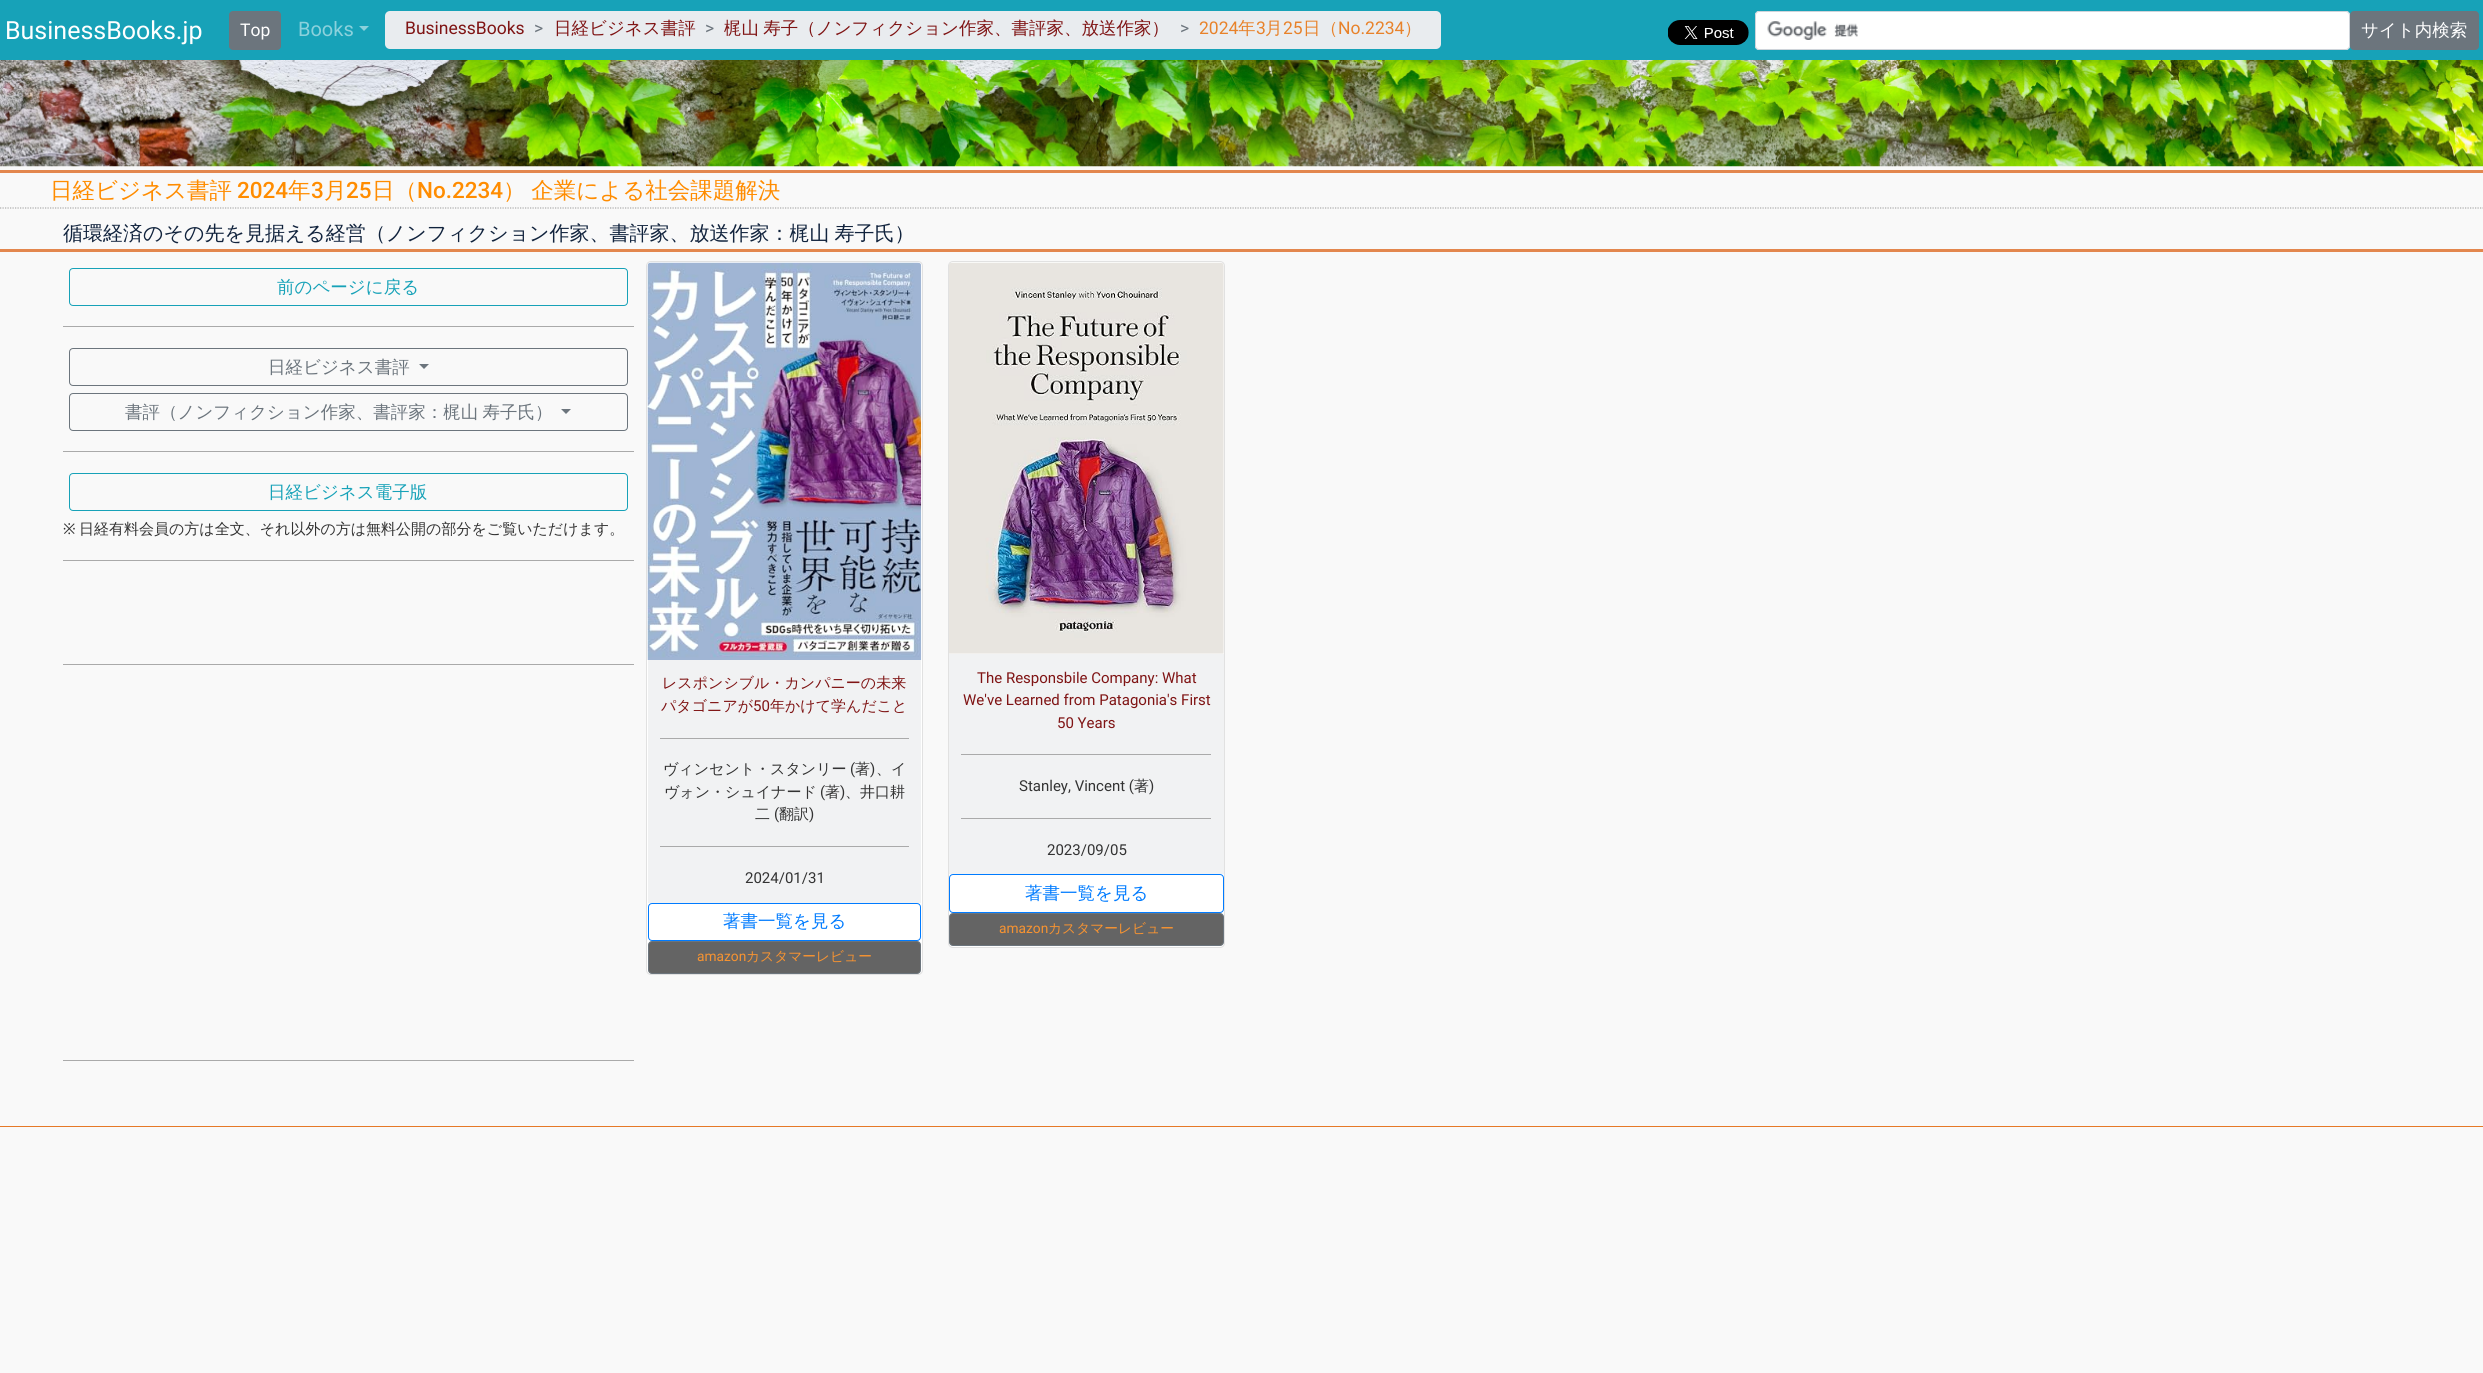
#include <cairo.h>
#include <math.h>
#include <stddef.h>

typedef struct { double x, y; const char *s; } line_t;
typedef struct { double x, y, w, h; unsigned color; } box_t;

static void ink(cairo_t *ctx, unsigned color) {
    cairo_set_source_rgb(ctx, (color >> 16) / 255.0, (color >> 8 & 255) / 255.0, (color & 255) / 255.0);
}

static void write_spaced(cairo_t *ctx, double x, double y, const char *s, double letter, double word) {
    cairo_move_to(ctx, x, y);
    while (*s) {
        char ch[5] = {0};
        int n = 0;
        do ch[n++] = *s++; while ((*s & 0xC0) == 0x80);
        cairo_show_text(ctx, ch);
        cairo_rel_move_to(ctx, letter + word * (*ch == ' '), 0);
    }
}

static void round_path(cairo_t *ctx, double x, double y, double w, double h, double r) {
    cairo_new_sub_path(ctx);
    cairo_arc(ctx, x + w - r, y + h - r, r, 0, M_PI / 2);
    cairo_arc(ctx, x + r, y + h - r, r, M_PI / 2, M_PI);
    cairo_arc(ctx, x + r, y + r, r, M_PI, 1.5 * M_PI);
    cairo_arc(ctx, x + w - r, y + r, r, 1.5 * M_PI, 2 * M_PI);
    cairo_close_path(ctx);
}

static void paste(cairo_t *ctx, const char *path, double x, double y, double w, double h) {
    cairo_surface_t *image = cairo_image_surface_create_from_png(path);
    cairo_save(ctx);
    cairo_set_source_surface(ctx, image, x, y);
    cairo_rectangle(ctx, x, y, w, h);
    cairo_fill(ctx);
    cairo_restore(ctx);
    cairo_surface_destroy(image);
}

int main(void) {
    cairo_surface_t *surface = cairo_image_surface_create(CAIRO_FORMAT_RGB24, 2483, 1373);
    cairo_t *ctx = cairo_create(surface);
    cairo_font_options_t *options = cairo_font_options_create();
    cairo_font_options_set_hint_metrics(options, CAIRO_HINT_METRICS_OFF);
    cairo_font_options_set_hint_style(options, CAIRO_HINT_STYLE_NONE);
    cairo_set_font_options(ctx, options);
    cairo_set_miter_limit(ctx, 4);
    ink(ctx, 0xF9F9F9);
    cairo_paint(ctx);
    ink(ctx, 0x17A2B8);
    cairo_rectangle(ctx, 0, 0, 2483, 60);
    cairo_fill(ctx);
    cairo_select_font_face(ctx, "Roboto", CAIRO_FONT_SLANT_NORMAL, CAIRO_FONT_WEIGHT_NORMAL);
    cairo_set_font_size(ctx, 25);
    ink(ctx, 0xFFFFFF);
    cairo_move_to(ctx, 5, 39);
    cairo_show_text(ctx, "BusinessBooks.jp");
    ink(ctx, 0x6C757D);
    round_path(ctx, 229.5, 11.5, 51, 38, 3.5);
    cairo_fill_preserve(ctx);
    cairo_set_line_width(ctx, 1);
    cairo_stroke(ctx);
    cairo_set_font_size(ctx, 17.5);
    ink(ctx, 0xFFFFFF);
    cairo_move_to(ctx, 240, 36);
    cairo_show_text(ctx, "Top");
    cairo_set_font_size(ctx, 20);
    ink(ctx, 0x8BD1DC);
    cairo_move_to(ctx, 298, 36);
    cairo_show_text(ctx, "Books");
    cairo_new_path(ctx);
    cairo_move_to(ctx, 359, 26);
    cairo_line_to(ctx, 369, 26);
    cairo_line_to(ctx, 364, 31);
    cairo_close_path(ctx);
    cairo_fill(ctx);
    ink(ctx, 0xE9ECEF);
    round_path(ctx, 385, 11, 1056, 38, 5);
    cairo_fill(ctx);
    cairo_set_font_size(ctx, 17.5);
    ink(ctx, 0x7F1414);
    cairo_move_to(ctx, 405, 34);
    cairo_show_text(ctx, "BusinessBooks");
    ink(ctx, 0x6C757D);
    cairo_move_to(ctx, 534, 34);
    cairo_show_text(ctx, ">");
    cairo_select_font_face(ctx, "WenQuanYi Zen Hei Medium", CAIRO_FONT_SLANT_NORMAL, CAIRO_FONT_WEIGHT_NORMAL);
    ink(ctx, 0x7F1414);
    cairo_move_to(ctx, 554, 34);
    cairo_show_text(ctx, "日経ビジネス書評");
    cairo_select_font_face(ctx, "Roboto", CAIRO_FONT_SLANT_NORMAL, CAIRO_FONT_WEIGHT_NORMAL);
    ink(ctx, 0x6C757D);
    cairo_move_to(ctx, 705, 34);
    cairo_show_text(ctx, ">");
    cairo_select_font_face(ctx, "WenQuanYi Zen Hei Medium", CAIRO_FONT_SLANT_NORMAL, CAIRO_FONT_WEIGHT_NORMAL);
    ink(ctx, 0x7F1414);
    write_spaced(ctx, 724, 34, "梶山 寿子（ノンフィクション作家、書評家、放送作家）", 0, -1);
    cairo_select_font_face(ctx, "Roboto", CAIRO_FONT_SLANT_NORMAL, CAIRO_FONT_WEIGHT_NORMAL);
    ink(ctx, 0x6C757D);
    cairo_move_to(ctx, 1180, 34);
    cairo_show_text(ctx, ">");
    ink(ctx, 0xE8822A);
    cairo_move_to(ctx, 1199, 34);
    cairo_show_text(ctx, "2024");
    cairo_select_font_face(ctx, "WenQuanYi Zen Hei Medium", CAIRO_FONT_SLANT_NORMAL, CAIRO_FONT_WEIGHT_NORMAL);
    cairo_move_to(ctx, 1238, 34);
    cairo_show_text(ctx, "年");
    cairo_select_font_face(ctx, "Roboto", CAIRO_FONT_SLANT_NORMAL, CAIRO_FONT_WEIGHT_NORMAL);
    cairo_move_to(ctx, 1256, 34);
    cairo_show_text(ctx, "3");
    cairo_select_font_face(ctx, "WenQuanYi Zen Hei Medium", CAIRO_FONT_SLANT_NORMAL, CAIRO_FONT_WEIGHT_NORMAL);
    cairo_move_to(ctx, 1265, 34);
    cairo_show_text(ctx, "月");
    cairo_select_font_face(ctx, "Roboto", CAIRO_FONT_SLANT_NORMAL, CAIRO_FONT_WEIGHT_NORMAL);
    cairo_move_to(ctx, 1283, 34);
    cairo_show_text(ctx, "25");
    cairo_select_font_face(ctx, "WenQuanYi Zen Hei Medium", CAIRO_FONT_SLANT_NORMAL, CAIRO_FONT_WEIGHT_NORMAL);
    cairo_move_to(ctx, 1303, 34);
    cairo_show_text(ctx, "日（");
    cairo_select_font_face(ctx, "Roboto", CAIRO_FONT_SLANT_NORMAL, CAIRO_FONT_WEIGHT_NORMAL);
    cairo_move_to(ctx, 1338, 34);
    cairo_show_text(ctx, "No.2234");
    cairo_select_font_face(ctx, "WenQuanYi Zen Hei Medium", CAIRO_FONT_SLANT_NORMAL, CAIRO_FONT_WEIGHT_NORMAL);
    cairo_move_to(ctx, 1404, 34);
    cairo_show_text(ctx, "）");
    paste(ctx, "media/1.png", 1668, 20, 81, 25);
    ink(ctx, 0xFFFFFF);
    round_path(ctx, 1755, 11, 595, 39, 4);
    cairo_fill(ctx);
    paste(ctx, "media/2.png", 1767, 21, 92, 19);
    round_path(ctx, 1755.5, 11.5, 594, 38, 3.5);
    ink(ctx, 0xCED4DA);
    cairo_stroke(ctx);
    ink(ctx, 0x6C757D);
    round_path(ctx, 2350.5, 11.5, 128, 38, 3.5);
    cairo_fill_preserve(ctx);
    cairo_stroke(ctx);
    ink(ctx, 0xFFFFFF);
    cairo_move_to(ctx, 2361, 36);
    cairo_show_text(ctx, "サイト内検索");
    paste(ctx, "media/3.png", 0, 60, 2483, 107);
    ink(ctx, 0xE3874E);
    cairo_rectangle(ctx, 0, 170, 2483, 3);
    cairo_fill(ctx);
    cairo_new_path(ctx);
    cairo_move_to(ctx, 0, 208);
    cairo_line_to(ctx, 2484, 208);
    ink(ctx, 0xAAAAAA);
    cairo_set_line_width(ctx, 1.2);
    cairo_set_dash(ctx, (double[]){1.25, 1.25}, 2, 0);
    cairo_stroke(ctx);
    cairo_set_font_size(ctx, 22.5);
    ink(ctx, 0xFF8C00);
    cairo_move_to(ctx, 50, 198);
    cairo_show_text(ctx, "日経ビジネス書評");
    cairo_select_font_face(ctx, "Roboto Medium", CAIRO_FONT_SLANT_NORMAL, CAIRO_FONT_WEIGHT_NORMAL);
    cairo_move_to(ctx, 237, 198);
    cairo_show_text(ctx, "2024");
    cairo_select_font_face(ctx, "WenQuanYi Zen Hei Medium", CAIRO_FONT_SLANT_NORMAL, CAIRO_FONT_WEIGHT_NORMAL);
    cairo_move_to(ctx, 288, 198);
    cairo_show_text(ctx, "年");
    cairo_select_font_face(ctx, "Roboto Medium", CAIRO_FONT_SLANT_NORMAL, CAIRO_FONT_WEIGHT_NORMAL);
    cairo_move_to(ctx, 311, 198);
    cairo_show_text(ctx, "3");
    cairo_select_font_face(ctx, "WenQuanYi Zen Hei Medium", CAIRO_FONT_SLANT_NORMAL, CAIRO_FONT_WEIGHT_NORMAL);
    cairo_move_to(ctx, 324, 198);
    cairo_show_text(ctx, "月");
    cairo_select_font_face(ctx, "Roboto Medium", CAIRO_FONT_SLANT_NORMAL, CAIRO_FONT_WEIGHT_NORMAL);
    cairo_move_to(ctx, 346, 198);
    cairo_show_text(ctx, "25");
    cairo_select_font_face(ctx, "WenQuanYi Zen Hei Medium", CAIRO_FONT_SLANT_NORMAL, CAIRO_FONT_WEIGHT_NORMAL);
    cairo_move_to(ctx, 372, 198);
    cairo_show_text(ctx, "日（");
    cairo_select_font_face(ctx, "Roboto Medium", CAIRO_FONT_SLANT_NORMAL, CAIRO_FONT_WEIGHT_NORMAL);
    cairo_move_to(ctx, 417, 198);
    cairo_show_text(ctx, "No.2234");
    cairo_select_font_face(ctx, "WenQuanYi Zen Hei Medium", CAIRO_FONT_SLANT_NORMAL, CAIRO_FONT_WEIGHT_NORMAL);
    write_spaced(ctx, 503, 198, "） 企業による社会課題解決", 0, -1);
    ink(ctx, 0xE3874E);
    cairo_rectangle(ctx, 0, 249, 2483, 3);
    cairo_fill(ctx);
    cairo_set_font_size(ctx, 20);
    ink(ctx, 0x11233D);
    write_spaced(ctx, 63, 240, "循環経済のその先を見据える経営（ノンフィクション作家、書評家、放送作家：梶山 寿子氏）", 0, -1);
    round_path(ctx, 69.5, 268.5, 558, 37, 3.5);
    ink(ctx, 0x17A2B8);
    cairo_set_line_width(ctx, 1);
    cairo_set_dash(ctx, NULL, 0, 0);
    cairo_stroke(ctx);
    cairo_set_font_size(ctx, 17.5);
    cairo_move_to(ctx, 277, 293);
    cairo_show_text(ctx, "前のページに戻る");
    ink(ctx, 0xAAAAAA);
    cairo_rectangle(ctx, 63, 326, 571, 1);
    cairo_fill(ctx);
    round_path(ctx, 69.5, 348.5, 558, 37, 3.5);
    ink(ctx, 0x6C757D);
    cairo_stroke(ctx);
    cairo_move_to(ctx, 268, 373);
    cairo_show_text(ctx, "日経ビジネス書評");
    cairo_new_path(ctx);
    cairo_move_to(ctx, 419, 364);
    cairo_line_to(ctx, 429, 364);
    cairo_line_to(ctx, 424, 369);
    cairo_close_path(ctx);
    cairo_fill(ctx);
    round_path(ctx, 69.5, 393.5, 558, 37, 3.5);
    cairo_stroke(ctx);
    write_spaced(ctx, 125, 418, "書評（ノンフィクション作家、書評家：梶山 寿子氏）", 0, -1);
    cairo_new_path(ctx);
    cairo_move_to(ctx, 561, 409);
    cairo_line_to(ctx, 571, 409);
    cairo_line_to(ctx, 566, 414);
    cairo_close_path(ctx);
    cairo_fill(ctx);
    ink(ctx, 0xAAAAAA);
    cairo_rectangle(ctx, 63, 451, 571, 1);
    cairo_fill(ctx);
    round_path(ctx, 69.5, 473.5, 558, 37, 3.5);
    ink(ctx, 0x17A2B8);
    cairo_stroke(ctx);
    cairo_move_to(ctx, 268, 498);
    cairo_show_text(ctx, "日経ビジネス電子版");
    cairo_select_font_face(ctx, "Noto Sans", CAIRO_FONT_SLANT_NORMAL, CAIRO_FONT_WEIGHT_NORMAL);
    cairo_set_font_size(ctx, 15);
    ink(ctx, 0x333333);
    cairo_move_to(ctx, 63, 534);
    cairo_show_text(ctx, "※");
    cairo_select_font_face(ctx, "WenQuanYi Zen Hei Medium", CAIRO_FONT_SLANT_NORMAL, CAIRO_FONT_WEIGHT_NORMAL);
    cairo_move_to(ctx, 79, 534);
    cairo_show_text(ctx, "日経有料会員の方は全文、それ以外の方は無料公開の部分をご覧いただけます。");
    {
        static const box_t items[] = {
            {63, 560, 571, 1, 0xAAAAAA},
            {63, 664, 571, 1, 0xAAAAAA},
            {63, 1060, 571, 1, 0xAAAAAA},
        };
        for (size_t i = 0; i < sizeof items / sizeof *items; i++) {
            ink(ctx, items[i].color);
            cairo_rectangle(ctx, items[i].x, items[i].y, items[i].w, items[i].h);
            cairo_fill(ctx);
        }
    }
    ink(ctx, 0xFFFFFF);
    round_path(ctx, 646, 261, 277, 714, 5);
    cairo_fill(ctx);
    round_path(ctx, 646.5, 261.5, 276, 713, 4.5);
    cairo_set_source_rgba(ctx, 0, 0, 0, 0.12);
    cairo_stroke(ctx);
    paste(ctx, "media/4.png", 647, 262, 275, 398);
    ink(ctx, 0xF1F2F3);
    cairo_rectangle(ctx, 648, 660, 273, 243);
    cairo_fill(ctx);
    ink(ctx, 0x7F1414);
    cairo_move_to(ctx, 662, 688);
    cairo_show_text(ctx, "レスポンシブル・カンパニーの未来");
    cairo_move_to(ctx, 661, 711);
    cairo_show_text(ctx, "パタゴニアが");
    cairo_select_font_face(ctx, "Roboto", CAIRO_FONT_SLANT_NORMAL, CAIRO_FONT_WEIGHT_NORMAL);
    cairo_move_to(ctx, 753, 711);
    cairo_show_text(ctx, "50");
    cairo_select_font_face(ctx, "WenQuanYi Zen Hei Medium", CAIRO_FONT_SLANT_NORMAL, CAIRO_FONT_WEIGHT_NORMAL);
    cairo_move_to(ctx, 770, 711);
    cairo_show_text(ctx, "年かけて学んだこと");
    ink(ctx, 0xAAAAAA);
    cairo_rectangle(ctx, 660, 738, 249, 1);
    cairo_fill(ctx);
    ink(ctx, 0x333333);
    cairo_move_to(ctx, 663, 774);
    cairo_show_text(ctx, "ヴィンセント・スタンリー");
    cairo_select_font_face(ctx, "Roboto", CAIRO_FONT_SLANT_NORMAL, CAIRO_FONT_WEIGHT_NORMAL);
    cairo_move_to(ctx, 850, 774);
    cairo_show_text(ctx, "(");
    cairo_select_font_face(ctx, "WenQuanYi Zen Hei Medium", CAIRO_FONT_SLANT_NORMAL, CAIRO_FONT_WEIGHT_NORMAL);
    cairo_move_to(ctx, 855, 774);
    cairo_show_text(ctx, "著");
    cairo_select_font_face(ctx, "Roboto", CAIRO_FONT_SLANT_NORMAL, CAIRO_FONT_WEIGHT_NORMAL);
    cairo_move_to(ctx, 870, 774);
    cairo_show_text(ctx, ")");
    cairo_select_font_face(ctx, "WenQuanYi Zen Hei Medium", CAIRO_FONT_SLANT_NORMAL, CAIRO_FONT_WEIGHT_NORMAL);
    cairo_move_to(ctx, 876, 774);
    cairo_show_text(ctx, "、イ");
    cairo_move_to(ctx, 664, 797);
    cairo_show_text(ctx, "ヴォン・シュイナード");
    cairo_select_font_face(ctx, "Roboto", CAIRO_FONT_SLANT_NORMAL, CAIRO_FONT_WEIGHT_NORMAL);
    cairo_move_to(ctx, 820, 797);
    cairo_show_text(ctx, "(");
    cairo_select_font_face(ctx, "WenQuanYi Zen Hei Medium", CAIRO_FONT_SLANT_NORMAL, CAIRO_FONT_WEIGHT_NORMAL);
    cairo_move_to(ctx, 825, 797);
    cairo_show_text(ctx, "著");
    cairo_select_font_face(ctx, "Roboto", CAIRO_FONT_SLANT_NORMAL, CAIRO_FONT_WEIGHT_NORMAL);
    cairo_move_to(ctx, 840, 797);
    cairo_show_text(ctx, ")");
    cairo_select_font_face(ctx, "WenQuanYi Zen Hei Medium", CAIRO_FONT_SLANT_NORMAL, CAIRO_FONT_WEIGHT_NORMAL);
    cairo_move_to(ctx, 845, 797);
    cairo_show_text(ctx, "、井口耕");
    cairo_move_to(ctx, 755, 819);
    cairo_show_text(ctx, "二");
    cairo_select_font_face(ctx, "Roboto", CAIRO_FONT_SLANT_NORMAL, CAIRO_FONT_WEIGHT_NORMAL);
    cairo_move_to(ctx, 774, 819);
    cairo_show_text(ctx, "(");
    cairo_select_font_face(ctx, "WenQuanYi Zen Hei Medium", CAIRO_FONT_SLANT_NORMAL, CAIRO_FONT_WEIGHT_NORMAL);
    cairo_move_to(ctx, 779, 819);
    cairo_show_text(ctx, "翻訳");
    cairo_select_font_face(ctx, "Roboto", CAIRO_FONT_SLANT_NORMAL, CAIRO_FONT_WEIGHT_NORMAL);
    cairo_move_to(ctx, 809, 819);
    cairo_show_text(ctx, ")");
    ink(ctx, 0xAAAAAA);
    cairo_rectangle(ctx, 660, 846, 249, 1);
    cairo_fill(ctx);
    ink(ctx, 0x333333);
    cairo_move_to(ctx, 745, 883);
    cairo_show_text(ctx, "2024/01/31");
    round_path(ctx, 648.5, 903.5, 272, 37, 3.5);
    ink(ctx, 0x007BFF);
    cairo_stroke(ctx);
    cairo_select_font_face(ctx, "WenQuanYi Zen Hei Medium", CAIRO_FONT_SLANT_NORMAL, CAIRO_FONT_WEIGHT_NORMAL);
    cairo_set_font_size(ctx, 17.5);
    cairo_move_to(ctx, 723, 927);
    cairo_show_text(ctx, "著書一覧を見る");
    ink(ctx, 0x646464);
    round_path(ctx, 648.5, 941.5, 272, 32, 3.5);
    cairo_fill_preserve(ctx);
    ink(ctx, 0x6C757D);
    cairo_stroke(ctx);
    cairo_select_font_face(ctx, "Roboto", CAIRO_FONT_SLANT_NORMAL, CAIRO_FONT_WEIGHT_NORMAL);
    cairo_set_font_size(ctx, 13.75);
    ink(ctx, 0xF79331);
    cairo_move_to(ctx, 697, 961);
    cairo_show_text(ctx, "amazon");
    cairo_select_font_face(ctx, "WenQuanYi Zen Hei Medium", CAIRO_FONT_SLANT_NORMAL, CAIRO_FONT_WEIGHT_NORMAL);
    cairo_move_to(ctx, 746, 961);
    cairo_show_text(ctx, "カスタマーレビュー");
    ink(ctx, 0xFFFFFF);
    round_path(ctx, 948, 261, 277, 687, 5);
    cairo_fill(ctx);
    round_path(ctx, 948.5, 261.5, 276, 686, 4.5);
    cairo_set_source_rgba(ctx, 0, 0, 0, 0.12);
    cairo_stroke(ctx);
    paste(ctx, "media/5.png", 949, 262, 275, 392);
    ink(ctx, 0xF1F2F3);
    cairo_rectangle(ctx, 949, 654, 275, 220);
    cairo_fill(ctx);
    cairo_select_font_face(ctx, "Roboto", CAIRO_FONT_SLANT_NORMAL, CAIRO_FONT_WEIGHT_NORMAL);
    cairo_set_font_size(ctx, 15);
    ink(ctx, 0x7F1414);
    {
        static const line_t items[] = {
            {977, 683, "The Responsbile Company: What"},
            {963, 705, "We've Learned from Patagonia's First"},
            {1057, 728, "50 Years"},
        };
        for (size_t i = 0; i < sizeof items / sizeof *items; i++) {
            cairo_move_to(ctx, items[i].x, items[i].y);
            cairo_show_text(ctx, items[i].s);
        }
    }
    ink(ctx, 0xAAAAAA);
    cairo_rectangle(ctx, 961, 754, 250, 1);
    cairo_fill(ctx);
    ink(ctx, 0x333333);
    cairo_move_to(ctx, 1019, 791);
    cairo_show_text(ctx, "Stanley, Vincent (");
    cairo_select_font_face(ctx, "WenQuanYi Zen Hei Medium", CAIRO_FONT_SLANT_NORMAL, CAIRO_FONT_WEIGHT_NORMAL);
    cairo_move_to(ctx, 1134, 791);
    cairo_show_text(ctx, "著");
    cairo_select_font_face(ctx, "Roboto", CAIRO_FONT_SLANT_NORMAL, CAIRO_FONT_WEIGHT_NORMAL);
    cairo_move_to(ctx, 1149, 791);
    cairo_show_text(ctx, ")");
    ink(ctx, 0xAAAAAA);
    cairo_rectangle(ctx, 961, 818, 250, 1);
    cairo_fill(ctx);
    ink(ctx, 0x333333);
    cairo_move_to(ctx, 1047, 855);
    cairo_show_text(ctx, "2023/09/05");
    round_path(ctx, 949.5, 874.5, 274, 38, 3.5);
    ink(ctx, 0x007BFF);
    cairo_stroke(ctx);
    cairo_select_font_face(ctx, "WenQuanYi Zen Hei Medium", CAIRO_FONT_SLANT_NORMAL, CAIRO_FONT_WEIGHT_NORMAL);
    cairo_set_font_size(ctx, 17.5);
    cairo_move_to(ctx, 1025, 899);
    cairo_show_text(ctx, "著書一覧を見る");
    ink(ctx, 0x646464);
    round_path(ctx, 949.5, 913.5, 274, 32, 3.5);
    cairo_fill_preserve(ctx);
    ink(ctx, 0x6C757D);
    cairo_stroke(ctx);
    cairo_select_font_face(ctx, "Roboto", CAIRO_FONT_SLANT_NORMAL, CAIRO_FONT_WEIGHT_NORMAL);
    cairo_set_font_size(ctx, 13.75);
    ink(ctx, 0xF79331);
    cairo_move_to(ctx, 999, 933);
    cairo_show_text(ctx, "amazon");
    cairo_select_font_face(ctx, "WenQuanYi Zen Hei Medium", CAIRO_FONT_SLANT_NORMAL, CAIRO_FONT_WEIGHT_NORMAL);
    cairo_move_to(ctx, 1048, 933);
    cairo_show_text(ctx, "カスタマーレビュー");
    ink(ctx, 0xE67928);
    cairo_rectangle(ctx, 0, 1126, 2483, 1);
    cairo_fill(ctx);
    cairo_surface_write_to_png(surface, "image.png");
    cairo_font_options_destroy(options);
    cairo_destroy(ctx);
    cairo_surface_destroy(surface);
    return 0;
}
